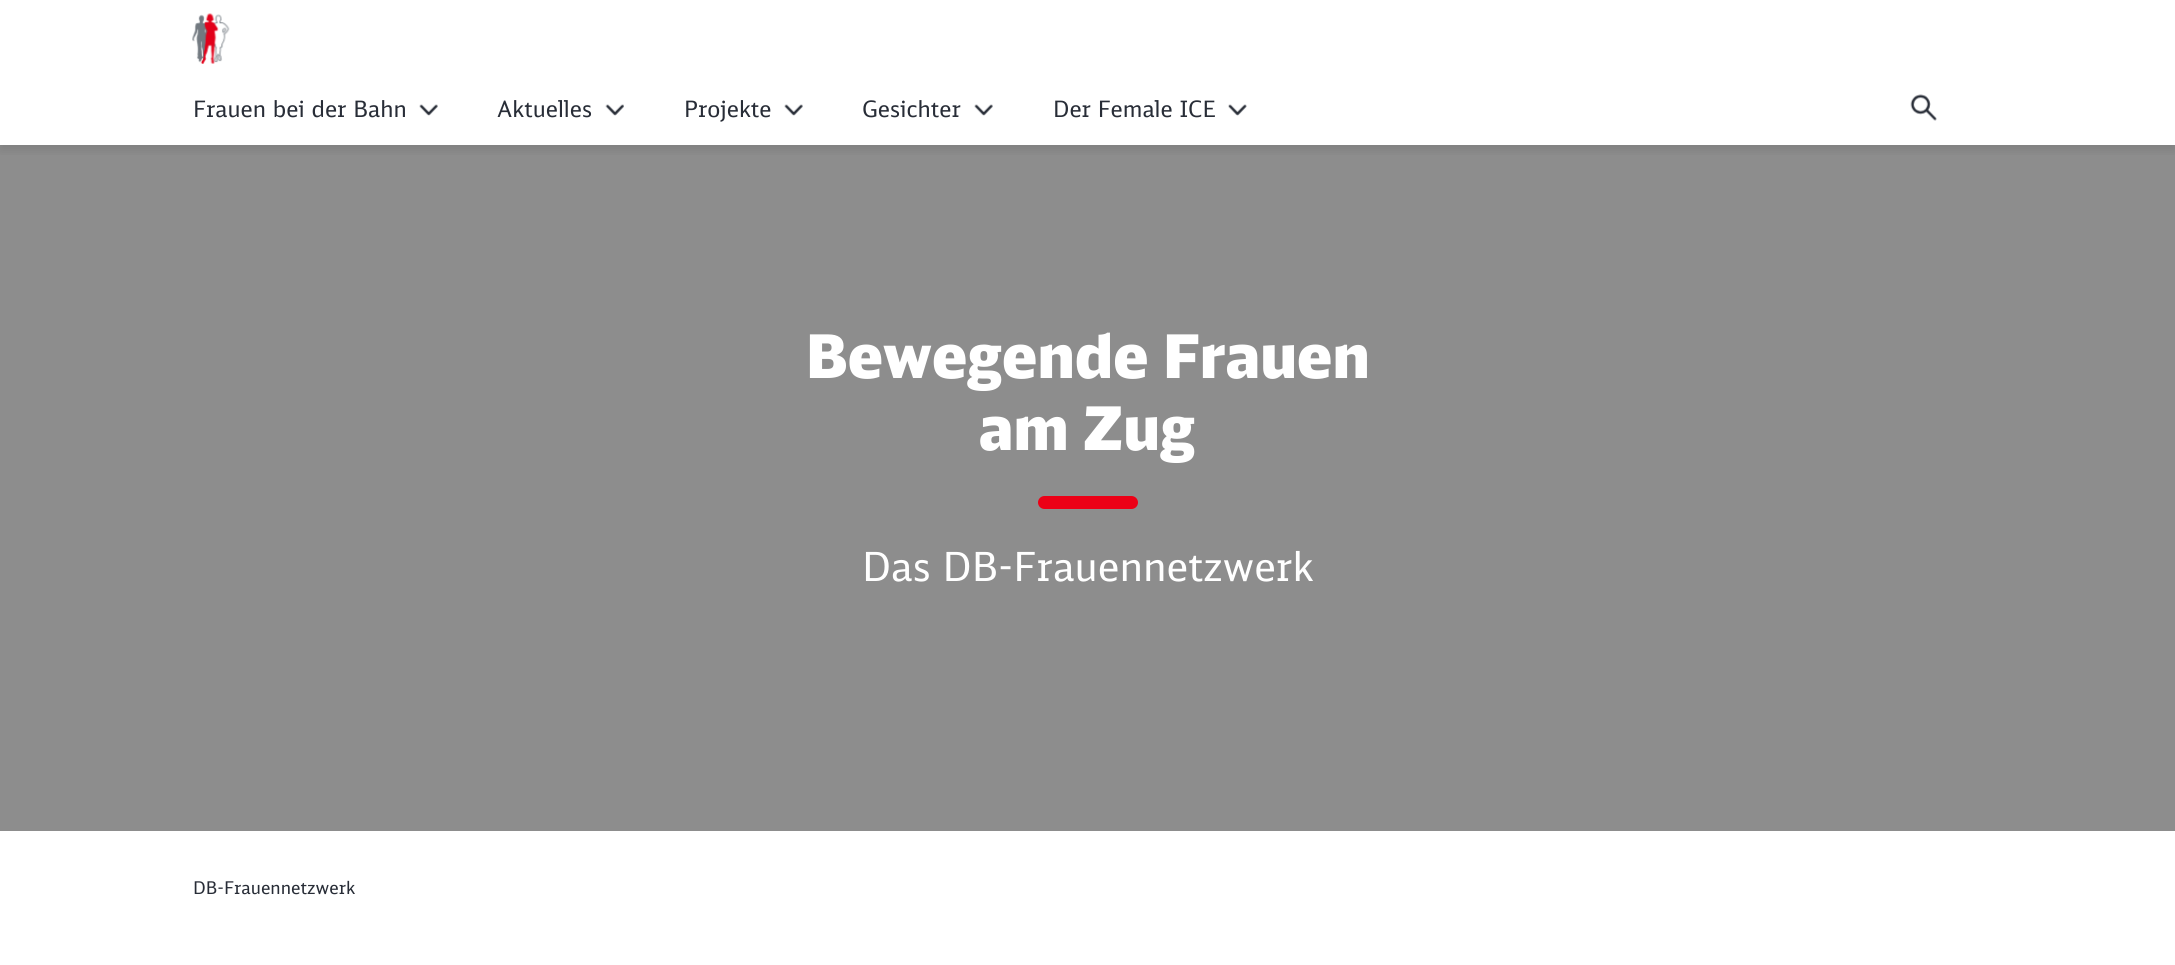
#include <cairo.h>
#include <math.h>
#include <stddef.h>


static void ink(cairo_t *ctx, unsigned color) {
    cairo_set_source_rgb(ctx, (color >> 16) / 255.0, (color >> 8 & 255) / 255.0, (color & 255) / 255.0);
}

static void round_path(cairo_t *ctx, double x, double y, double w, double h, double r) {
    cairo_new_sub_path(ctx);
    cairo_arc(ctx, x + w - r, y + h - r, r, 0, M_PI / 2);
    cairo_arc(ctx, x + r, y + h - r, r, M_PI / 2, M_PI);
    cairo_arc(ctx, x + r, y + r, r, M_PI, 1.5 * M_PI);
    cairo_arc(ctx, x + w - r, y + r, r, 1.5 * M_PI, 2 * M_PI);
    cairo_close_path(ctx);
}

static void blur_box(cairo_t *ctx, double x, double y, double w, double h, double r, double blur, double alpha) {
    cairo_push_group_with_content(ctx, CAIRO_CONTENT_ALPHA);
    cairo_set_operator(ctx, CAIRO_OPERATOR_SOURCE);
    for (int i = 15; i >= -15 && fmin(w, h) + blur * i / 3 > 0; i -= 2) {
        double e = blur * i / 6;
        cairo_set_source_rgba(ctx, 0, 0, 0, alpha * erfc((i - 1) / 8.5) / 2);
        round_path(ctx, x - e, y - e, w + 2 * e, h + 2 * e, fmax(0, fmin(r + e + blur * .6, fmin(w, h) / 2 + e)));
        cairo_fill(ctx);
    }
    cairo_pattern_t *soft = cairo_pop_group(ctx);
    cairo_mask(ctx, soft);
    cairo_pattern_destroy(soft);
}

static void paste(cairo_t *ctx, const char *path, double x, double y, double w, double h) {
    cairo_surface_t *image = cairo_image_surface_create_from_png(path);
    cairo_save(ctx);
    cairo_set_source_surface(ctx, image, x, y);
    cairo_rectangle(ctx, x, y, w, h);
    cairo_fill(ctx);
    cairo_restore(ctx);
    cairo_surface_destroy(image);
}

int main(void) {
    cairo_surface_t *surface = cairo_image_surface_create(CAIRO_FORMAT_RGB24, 2175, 965);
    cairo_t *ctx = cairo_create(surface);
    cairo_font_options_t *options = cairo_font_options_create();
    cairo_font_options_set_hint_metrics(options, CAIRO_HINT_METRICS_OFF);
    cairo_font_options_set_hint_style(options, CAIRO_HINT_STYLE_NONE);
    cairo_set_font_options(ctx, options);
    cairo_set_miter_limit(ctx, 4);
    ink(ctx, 0xFFFFFF);
    cairo_paint(ctx);
    ink(ctx, 0x8D8D8D);
    cairo_rectangle(ctx, 0, 145, 2175, 686);
    cairo_fill(ctx);
    cairo_save(ctx);
    cairo_rectangle(ctx, 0, 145, 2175, 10);
    cairo_clip(ctx);
    ink(ctx, 0x000000);
    blur_box(ctx, 0, 5, 2175, 145, 0, 6, 0.1);
    cairo_restore(ctx);
    paste(ctx, "media/1.png", 192, 13, 38, 51);
    cairo_select_font_face(ctx, "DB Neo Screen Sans", CAIRO_FONT_SLANT_NORMAL, CAIRO_FONT_WEIGHT_NORMAL);
    cairo_set_font_size(ctx, 22.5);
    ink(ctx, 0x282D37);
    cairo_move_to(ctx, 193, 117);
    cairo_show_text(ctx, "Frauen bei der Bahn");
    paste(ctx, "media/2.png", 419, 104, 19, 12);
    cairo_move_to(ctx, 497, 117);
    cairo_show_text(ctx, "Aktuelles");
    paste(ctx, "media/3.png", 605, 104, 19, 12);
    cairo_move_to(ctx, 684, 117);
    cairo_show_text(ctx, "Projekte");
    paste(ctx, "media/2.png", 784, 104, 19, 12);
    cairo_move_to(ctx, 862, 117);
    cairo_show_text(ctx, "Gesichter");
    paste(ctx, "media/2.png", 974, 104, 19, 12);
    cairo_move_to(ctx, 1053, 117);
    cairo_show_text(ctx, "Der Female ICE");
    paste(ctx, "media/4.png", 1228, 104, 19, 12);
    paste(ctx, "media/5.png", 1910, 94, 27, 27);
    cairo_select_font_face(ctx, "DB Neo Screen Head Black", CAIRO_FONT_SLANT_NORMAL, CAIRO_FONT_WEIGHT_NORMAL);
    cairo_set_font_size(ctx, 60);
    ink(ctx, 0xFFFFFF);
    cairo_move_to(ctx, 806, 378);
    cairo_show_text(ctx, "Bewegende Frauen");
    cairo_move_to(ctx, 979, 450);
    cairo_show_text(ctx, "am Zug");
    ink(ctx, 0xEC0016);
    round_path(ctx, 1038, 496, 100, 13, 6.5);
    cairo_fill(ctx);
    cairo_select_font_face(ctx, "DB Neo Screen Sans", CAIRO_FONT_SLANT_NORMAL, CAIRO_FONT_WEIGHT_NORMAL);
    cairo_set_font_size(ctx, 40);
    ink(ctx, 0xFFFFFF);
    cairo_move_to(ctx, 862, 581);
    cairo_show_text(ctx, "Das DB-Frauennetzwerk");
    cairo_set_font_size(ctx, 17.5);
    ink(ctx, 0x282D37);
    cairo_move_to(ctx, 193, 894);
    cairo_show_text(ctx, "DB-Frauennetzwerk");
    cairo_surface_write_to_png(surface, "image.png");
    cairo_font_options_destroy(options);
    cairo_destroy(ctx);
    cairo_surface_destroy(surface);
    return 0;
}
